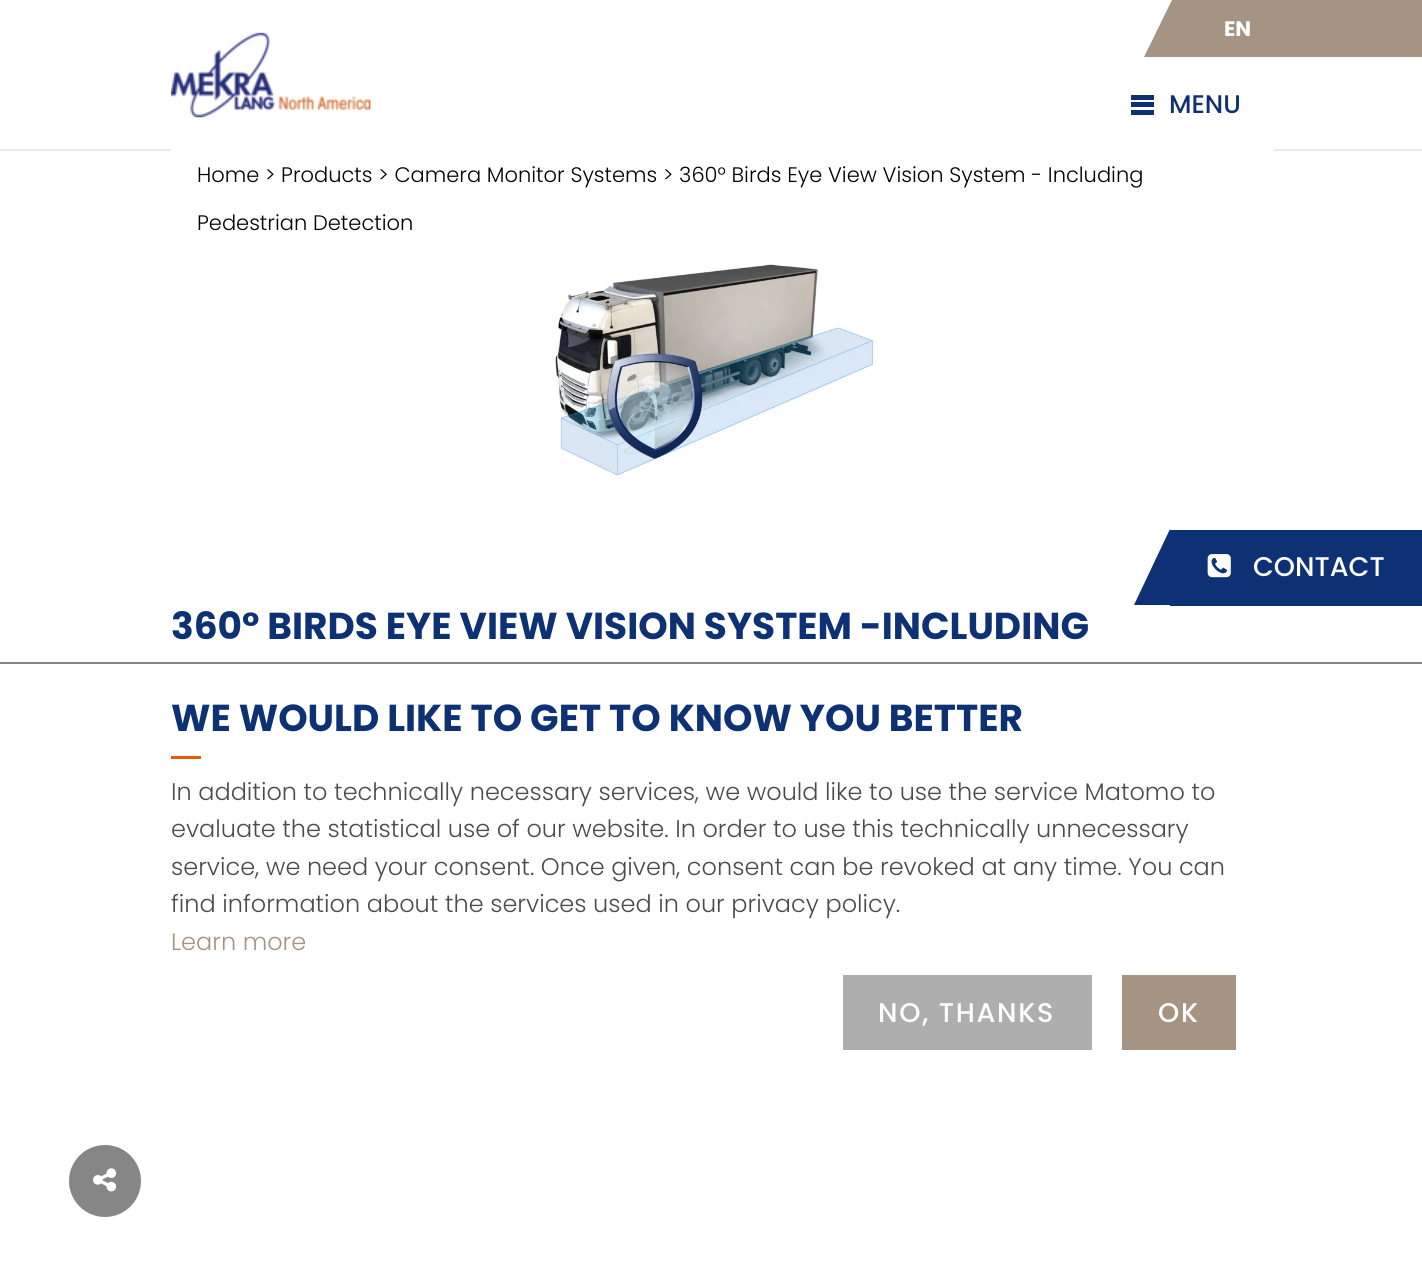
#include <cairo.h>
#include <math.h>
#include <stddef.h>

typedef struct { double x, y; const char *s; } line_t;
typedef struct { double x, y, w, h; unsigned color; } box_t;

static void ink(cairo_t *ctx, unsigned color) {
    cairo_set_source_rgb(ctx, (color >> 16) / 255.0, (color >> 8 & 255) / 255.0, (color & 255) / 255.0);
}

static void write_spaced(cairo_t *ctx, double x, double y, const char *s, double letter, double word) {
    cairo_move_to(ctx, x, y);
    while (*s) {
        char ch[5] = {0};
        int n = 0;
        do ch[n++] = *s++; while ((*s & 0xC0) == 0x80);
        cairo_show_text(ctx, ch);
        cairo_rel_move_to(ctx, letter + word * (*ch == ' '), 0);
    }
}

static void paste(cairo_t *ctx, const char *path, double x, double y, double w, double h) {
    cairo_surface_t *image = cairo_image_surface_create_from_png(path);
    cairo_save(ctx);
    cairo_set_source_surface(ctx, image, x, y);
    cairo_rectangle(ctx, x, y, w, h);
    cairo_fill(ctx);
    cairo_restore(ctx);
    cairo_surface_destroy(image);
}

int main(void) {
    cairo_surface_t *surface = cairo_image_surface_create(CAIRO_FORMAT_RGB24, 1422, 1261);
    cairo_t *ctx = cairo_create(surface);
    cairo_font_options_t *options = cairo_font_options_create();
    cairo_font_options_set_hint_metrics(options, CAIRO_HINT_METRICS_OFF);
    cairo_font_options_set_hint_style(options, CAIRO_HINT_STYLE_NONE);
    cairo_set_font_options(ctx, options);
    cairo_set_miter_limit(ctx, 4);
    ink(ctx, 0xFFFFFF);
    cairo_paint(ctx);
    ink(ctx, 0xEDE9E6);
    cairo_rectangle(ctx, 0, 149, 1422, 2);
    cairo_fill(ctx);
    ink(ctx, 0xA59383);
    cairo_rectangle(ctx, 1172, 0, 250, 57);
    cairo_fill(ctx);
    cairo_new_path(ctx);
    cairo_move_to(ctx, 1172, 57);
    cairo_line_to(ctx, 1144, 57);
    cairo_line_to(ctx, 1172, 0);
    cairo_close_path(ctx);
    cairo_fill(ctx);
    cairo_select_font_face(ctx, "Poppins", CAIRO_FONT_SLANT_NORMAL, CAIRO_FONT_WEIGHT_BOLD);
    cairo_set_font_size(ctx, 21);
    ink(ctx, 0xFFFFFF);
    cairo_move_to(ctx, 1224, 36);
    cairo_show_text(ctx, "EN");
    paste(ctx, "media/1.png", 171, 32, 200, 86);
    {
        static const box_t items[] = {
            {1131, 95, 23, 5, 0x0D3174},
            {1131, 102, 23, 5, 0x0D3174},
            {1131, 110, 23, 5, 0x0D3174},
        };
        for (size_t i = 0; i < sizeof items / sizeof *items; i++) {
            ink(ctx, items[i].color);
            cairo_rectangle(ctx, items[i].x, items[i].y, items[i].w, items[i].h);
            cairo_fill(ctx);
        }
    }
    cairo_select_font_face(ctx, "Poppins Medium", CAIRO_FONT_SLANT_NORMAL, CAIRO_FONT_WEIGHT_NORMAL);
    cairo_set_font_size(ctx, 25.5);
    cairo_move_to(ctx, 1169, 113);
    cairo_show_text(ctx, "MENU");
    ink(ctx, 0xFFFFFF);
    cairo_rectangle(ctx, 171, 149, 1103, 2);
    cairo_fill(ctx);
    cairo_select_font_face(ctx, "Poppins Light", CAIRO_FONT_SLANT_NORMAL, CAIRO_FONT_WEIGHT_NORMAL);
    cairo_set_font_size(ctx, 21);
    ink(ctx, 0x000000);
    cairo_move_to(ctx, 197, 182);
    cairo_show_text(ctx, "Home > Products > Camera Monitor Systems > 360° Birds Eye View Vision System - Including");
    cairo_move_to(ctx, 197, 230);
    cairo_show_text(ctx, "Pedestrian Detection");
    paste(ctx, "media/2.png", 555, 264, 319, 212);
    ink(ctx, 0x0D3174);
    cairo_rectangle(ctx, 1170, 530, 252, 76);
    cairo_fill(ctx);
    cairo_new_path(ctx);
    cairo_move_to(ctx, 1170, 605);
    cairo_line_to(ctx, 1134, 605);
    cairo_line_to(ctx, 1170, 529);
    cairo_close_path(ctx);
    cairo_fill(ctx);
    paste(ctx, "media/3.png", 1207, 554, 24, 24);
    cairo_select_font_face(ctx, "Poppins Medium", CAIRO_FONT_SLANT_NORMAL, CAIRO_FONT_WEIGHT_NORMAL);
    cairo_set_font_size(ctx, 27);
    ink(ctx, 0xFFFFFF);
    cairo_move_to(ctx, 1253, 576);
    cairo_show_text(ctx, "CONTACT");
    cairo_select_font_face(ctx, "Poppins", CAIRO_FONT_SLANT_NORMAL, CAIRO_FONT_WEIGHT_BOLD);
    cairo_set_font_size(ctx, 37.5);
    ink(ctx, 0x0D3174);
    cairo_move_to(ctx, 171, 639);
    cairo_show_text(ctx, "360° BIRDS EYE VIEW VISION SYSTEM -INCLUDING");
    ink(ctx, 0x868686);
    cairo_new_path(ctx);
    cairo_arc(ctx, 105, 1181, 36, 0, 2 * M_PI);
    cairo_fill(ctx);
    paste(ctx, "media/4.png", 93, 1168, 24, 24);
    cairo_rectangle(ctx, 0, 662, 1422, 2);
    cairo_fill(ctx);
    ink(ctx, 0x0D3174);
    cairo_move_to(ctx, 171, 731);
    cairo_show_text(ctx, "WE WOULD LIKE TO GET TO KNOW YOU BETTER");
    ink(ctx, 0xEA5906);
    cairo_rectangle(ctx, 171, 756, 30, 3);
    cairo_fill(ctx);
    cairo_select_font_face(ctx, "Poppins Light", CAIRO_FONT_SLANT_NORMAL, CAIRO_FONT_WEIGHT_NORMAL);
    cairo_set_font_size(ctx, 24);
    ink(ctx, 0x4B4B4B);
    {
        static const line_t items[] = {
            {171, 800, "In addition to technically necessary services, we would like to use the service Matomo to"},
            {171, 837, "evaluate the statistical use of our website. In order to use this technically unnecessary"},
            {171, 875, "service, we need your consent. Once given, consent can be revoked at any time. You can"},
            {171, 912, "find information about the services used in our privacy policy."},
        };
        for (size_t i = 0; i < sizeof items / sizeof *items; i++) {
            cairo_move_to(ctx, items[i].x, items[i].y);
            cairo_show_text(ctx, items[i].s);
        }
    }
    ink(ctx, 0xA59383);
    cairo_move_to(ctx, 171, 950);
    cairo_show_text(ctx, "Learn more");
    ink(ctx, 0xAEAEAE);
    cairo_rectangle(ctx, 843, 975, 249, 75);
    cairo_fill(ctx);
    cairo_select_font_face(ctx, "Poppins Medium", CAIRO_FONT_SLANT_NORMAL, CAIRO_FONT_WEIGHT_NORMAL);
    cairo_set_font_size(ctx, 27);
    ink(ctx, 0xFFFFFF);
    write_spaced(ctx, 878, 1022, "NO, THANKS", 1.75, 0);
    ink(ctx, 0xA59383);
    cairo_rectangle(ctx, 1122, 975, 114, 75);
    cairo_fill(ctx);
    ink(ctx, 0xFFFFFF);
    write_spaced(ctx, 1158, 1022, "OK", 1.75, 0);
    cairo_surface_write_to_png(surface, "image.png");
    cairo_font_options_destroy(options);
    cairo_destroy(ctx);
    cairo_surface_destroy(surface);
    return 0;
}
